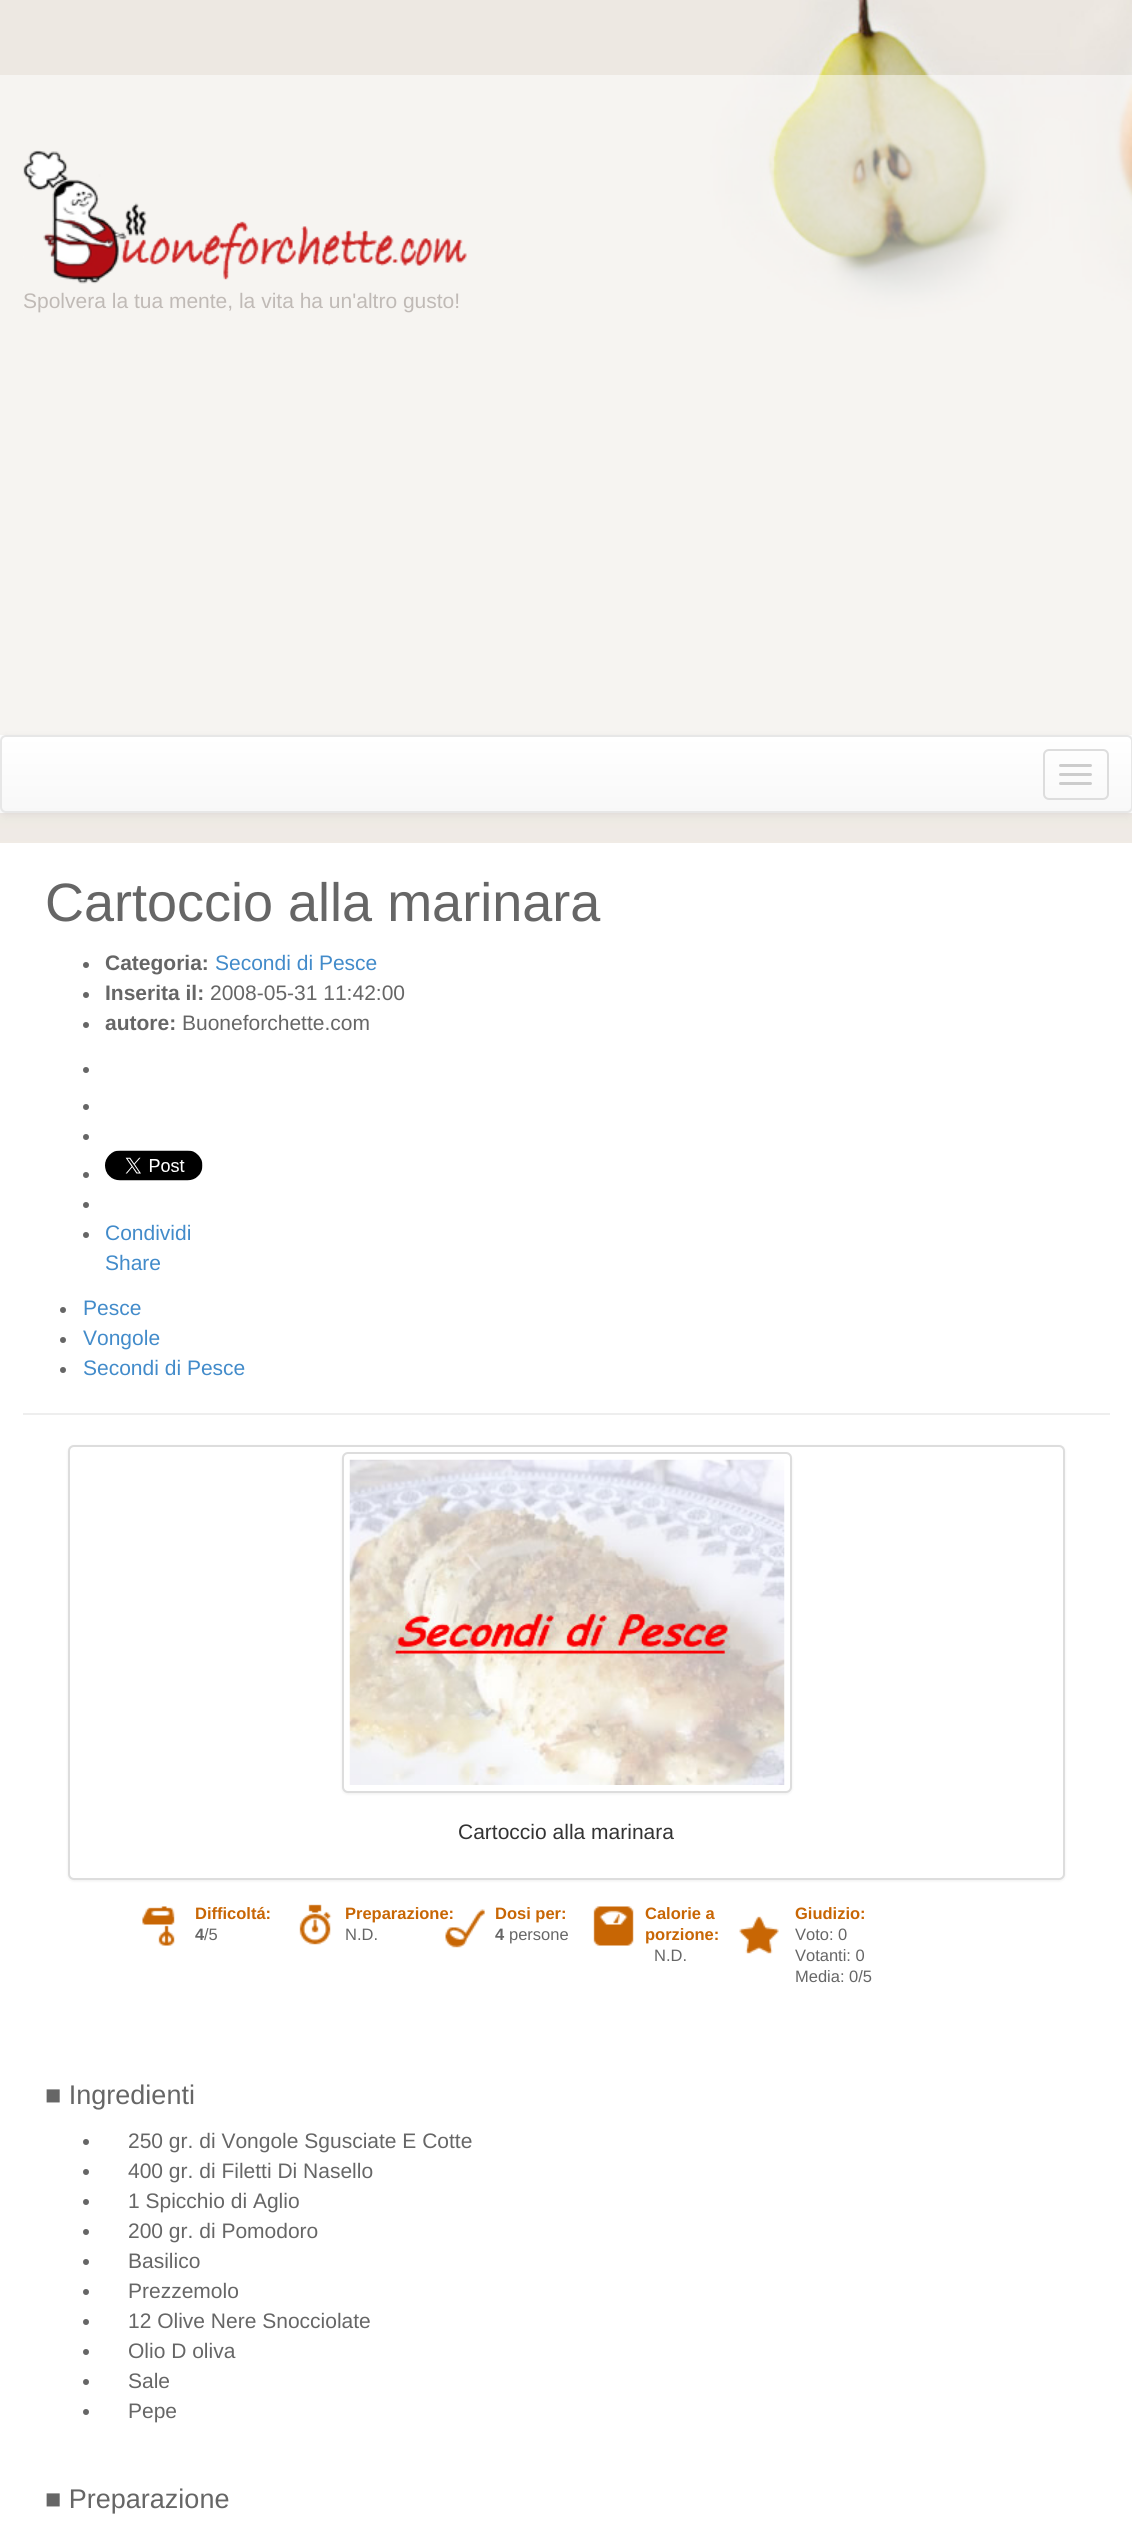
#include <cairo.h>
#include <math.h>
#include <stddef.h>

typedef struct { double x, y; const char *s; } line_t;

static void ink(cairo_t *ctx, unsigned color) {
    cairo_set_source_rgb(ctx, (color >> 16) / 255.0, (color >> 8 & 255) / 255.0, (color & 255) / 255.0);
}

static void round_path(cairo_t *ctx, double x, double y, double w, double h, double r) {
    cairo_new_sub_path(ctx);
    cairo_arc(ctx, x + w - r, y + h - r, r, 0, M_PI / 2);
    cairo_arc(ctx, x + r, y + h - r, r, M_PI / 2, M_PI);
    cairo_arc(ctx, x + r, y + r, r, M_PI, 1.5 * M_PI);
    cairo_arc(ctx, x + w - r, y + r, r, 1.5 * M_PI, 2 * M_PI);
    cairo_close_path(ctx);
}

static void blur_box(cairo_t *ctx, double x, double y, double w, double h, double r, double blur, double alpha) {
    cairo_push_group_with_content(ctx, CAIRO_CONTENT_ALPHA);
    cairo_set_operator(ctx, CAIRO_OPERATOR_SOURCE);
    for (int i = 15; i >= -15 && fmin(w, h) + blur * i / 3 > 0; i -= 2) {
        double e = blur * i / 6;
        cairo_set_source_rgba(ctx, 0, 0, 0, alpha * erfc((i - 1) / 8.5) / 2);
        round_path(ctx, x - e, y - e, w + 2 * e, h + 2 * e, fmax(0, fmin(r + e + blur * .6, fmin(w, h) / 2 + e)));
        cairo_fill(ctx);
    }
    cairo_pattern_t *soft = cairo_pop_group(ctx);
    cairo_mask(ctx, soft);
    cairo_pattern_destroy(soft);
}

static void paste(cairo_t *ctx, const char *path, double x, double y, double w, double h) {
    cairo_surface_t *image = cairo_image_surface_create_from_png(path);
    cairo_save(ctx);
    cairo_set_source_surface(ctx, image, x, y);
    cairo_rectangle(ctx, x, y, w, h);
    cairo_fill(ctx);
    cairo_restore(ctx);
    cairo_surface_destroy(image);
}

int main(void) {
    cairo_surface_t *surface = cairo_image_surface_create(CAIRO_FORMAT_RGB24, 1132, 2539);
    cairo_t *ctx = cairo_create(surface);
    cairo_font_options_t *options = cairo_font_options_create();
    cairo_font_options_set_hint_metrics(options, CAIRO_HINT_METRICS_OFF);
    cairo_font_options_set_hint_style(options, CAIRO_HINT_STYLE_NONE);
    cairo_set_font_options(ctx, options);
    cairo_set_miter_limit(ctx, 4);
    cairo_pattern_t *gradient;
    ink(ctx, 0xFFFFFF);
    cairo_paint(ctx);
    paste(ctx, "media/1.png", 0, 0, 1132, 843);
    cairo_set_source_rgba(ctx, 1, 1, 1, 0.5);
    cairo_rectangle(ctx, 0, 75, 1132, 660);
    cairo_fill(ctx);
    paste(ctx, "media/2.png", 23, 150, 444, 134);
    cairo_select_font_face(ctx, "Liberation Sans", CAIRO_FONT_SLANT_NORMAL, CAIRO_FONT_WEIGHT_NORMAL);
    cairo_set_font_size(ctx, 21);
    ink(ctx, 0xC0BAB6);
    cairo_move_to(ctx, 23, 308);
    cairo_show_text(ctx, "Spolvera la tua mente, la vita ha un'altro gusto!");
    ink(ctx, 0xFFFFFF);
    cairo_rectangle(ctx, 0, 735, 1132, 78);
    cairo_fill(ctx);
    ink(ctx, 0x000000);
    blur_box(ctx, 0, 737, 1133, 78, 6, 4, 0.07);
    cairo_save(ctx);
    round_path(ctx, 0, 735, 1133, 78, 6);
    cairo_clip(ctx);
    gradient = cairo_pattern_create_linear(566, 736, 566, 812);
    cairo_pattern_add_color_stop_rgba(gradient, 0, 1, 1, 1, 1);
    cairo_pattern_add_color_stop_rgba(gradient, 1, 0.973, 0.973, 0.973, 1);
    cairo_set_source(ctx, gradient);
    cairo_pattern_destroy(gradient);
    cairo_rectangle(ctx, 0, 737, 1132, 75);
    cairo_fill(ctx);
    cairo_restore(ctx);
    round_path(ctx, 1, 736, 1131, 76, 5);
    ink(ctx, 0xE7E7E7);
    cairo_stroke(ctx);
    round_path(ctx, 1044, 750, 64, 49, 5);
    ink(ctx, 0xDDDDDD);
    cairo_stroke(ctx);
    ink(ctx, 0xCCCCCC);
    round_path(ctx, 1059, 764, 33, 3, 1.5);
    cairo_fill(ctx);
    round_path(ctx, 1059, 773, 33, 3, 1.5);
    cairo_fill(ctx);
    round_path(ctx, 1059, 782, 33, 3, 1.5);
    cairo_fill(ctx);
    cairo_set_font_size(ctx, 54);
    ink(ctx, 0x666666);
    cairo_move_to(ctx, 45, 921);
    cairo_show_text(ctx, "Cartoccio alla marinara");
    cairo_new_path(ctx);
    cairo_arc(ctx, 86, 965, 3, 0, 2 * M_PI);
    cairo_fill(ctx);
    cairo_select_font_face(ctx, "Liberation Sans", CAIRO_FONT_SLANT_NORMAL, CAIRO_FONT_WEIGHT_BOLD);
    cairo_set_font_size(ctx, 21);
    cairo_move_to(ctx, 105, 970);
    cairo_show_text(ctx, "Categoria:");
    cairo_select_font_face(ctx, "Liberation Sans", CAIRO_FONT_SLANT_NORMAL, CAIRO_FONT_WEIGHT_NORMAL);
    ink(ctx, 0x428BCA);
    cairo_move_to(ctx, 215, 970);
    cairo_show_text(ctx, "Secondi di Pesce");
    ink(ctx, 0x666666);
    cairo_new_path(ctx);
    cairo_arc(ctx, 86, 995, 3, 0, 2 * M_PI);
    cairo_fill(ctx);
    cairo_select_font_face(ctx, "Liberation Sans", CAIRO_FONT_SLANT_NORMAL, CAIRO_FONT_WEIGHT_BOLD);
    cairo_move_to(ctx, 105, 1000);
    cairo_show_text(ctx, "Inserita il:");
    cairo_select_font_face(ctx, "Liberation Sans", CAIRO_FONT_SLANT_NORMAL, CAIRO_FONT_WEIGHT_NORMAL);
    cairo_move_to(ctx, 210, 1000);
    cairo_show_text(ctx, "2008-05-31 11:42:00");
    cairo_new_path(ctx);
    cairo_arc(ctx, 86, 1025, 3, 0, 2 * M_PI);
    cairo_fill(ctx);
    cairo_select_font_face(ctx, "Liberation Sans", CAIRO_FONT_SLANT_NORMAL, CAIRO_FONT_WEIGHT_BOLD);
    cairo_move_to(ctx, 105, 1030);
    cairo_show_text(ctx, "autore:");
    cairo_select_font_face(ctx, "Liberation Sans", CAIRO_FONT_SLANT_NORMAL, CAIRO_FONT_WEIGHT_NORMAL);
    cairo_move_to(ctx, 182, 1030);
    cairo_show_text(ctx, "Buoneforchette.com");
    cairo_new_path(ctx);
    cairo_arc(ctx, 86, 1070, 3, 0, 2 * M_PI);
    cairo_fill(ctx);
    cairo_arc(ctx, 86, 1107, 3, 0, 2 * M_PI);
    cairo_fill(ctx);
    cairo_arc(ctx, 86, 1137, 3, 0, 2 * M_PI);
    cairo_fill(ctx);
    cairo_arc(ctx, 86, 1175, 3, 0, 2 * M_PI);
    cairo_fill(ctx);
    paste(ctx, "media/3.png", 105, 1150, 98, 31);
    cairo_arc(ctx, 86, 1205, 3, 0, 2 * M_PI);
    cairo_fill(ctx);
    cairo_arc(ctx, 86, 1235, 3, 0, 2 * M_PI);
    cairo_fill(ctx);
    ink(ctx, 0x428BCA);
    cairo_move_to(ctx, 105, 1240);
    cairo_show_text(ctx, "Condividi");
    cairo_move_to(ctx, 105, 1270);
    cairo_show_text(ctx, "Share");
    ink(ctx, 0x666666);
    cairo_new_path(ctx);
    cairo_arc(ctx, 63, 1310, 3, 0, 2 * M_PI);
    cairo_fill(ctx);
    ink(ctx, 0x428BCA);
    cairo_move_to(ctx, 83, 1315);
    cairo_show_text(ctx, "Pesce");
    ink(ctx, 0x666666);
    cairo_new_path(ctx);
    cairo_arc(ctx, 63, 1340, 3, 0, 2 * M_PI);
    cairo_fill(ctx);
    ink(ctx, 0x428BCA);
    cairo_move_to(ctx, 83, 1345);
    cairo_show_text(ctx, "Vongole");
    ink(ctx, 0x666666);
    cairo_new_path(ctx);
    cairo_arc(ctx, 63, 1370, 3, 0, 2 * M_PI);
    cairo_fill(ctx);
    ink(ctx, 0x428BCA);
    cairo_move_to(ctx, 83, 1375);
    cairo_show_text(ctx, "Secondi di Pesce");
    ink(ctx, 0xEEEEEE);
    cairo_rectangle(ctx, 23, 1413, 1087, 2);
    cairo_fill(ctx);
    ink(ctx, 0x000000);
    blur_box(ctx, 68, 1446, 997, 435, 6, 1.5, 0.07);
    ink(ctx, 0xFFFFFF);
    round_path(ctx, 69, 1446, 995, 433, 5);
    cairo_fill_preserve(ctx);
    ink(ctx, 0xDDDDDD);
    cairo_stroke(ctx);
    ink(ctx, 0x000000);
    blur_box(ctx, 342, 1454, 450, 340, 6, 1.5, 0.07);
    ink(ctx, 0xFFFFFF);
    round_path(ctx, 343, 1453, 448, 339, 5);
    cairo_fill_preserve(ctx);
    ink(ctx, 0xDDDDDD);
    cairo_stroke(ctx);
    paste(ctx, "media/4.png", 349, 1459, 436, 326);
    ink(ctx, 0x333333);
    cairo_move_to(ctx, 458, 1839);
    cairo_show_text(ctx, "Cartoccio alla marinara");
    paste(ctx, "media/5.png", 142, 1906, 33, 40);
    cairo_select_font_face(ctx, "Liberation Sans", CAIRO_FONT_SLANT_NORMAL, CAIRO_FONT_WEIGHT_BOLD);
    cairo_set_font_size(ctx, 16.5);
    ink(ctx, 0xC86604);
    cairo_move_to(ctx, 195, 1919);
    cairo_show_text(ctx, "Difficoltá:");
    ink(ctx, 0x666666);
    cairo_move_to(ctx, 195, 1940);
    cairo_show_text(ctx, "4");
    cairo_select_font_face(ctx, "Liberation Sans", CAIRO_FONT_SLANT_NORMAL, CAIRO_FONT_WEIGHT_NORMAL);
    cairo_move_to(ctx, 204, 1940);
    cairo_show_text(ctx, "/5");
    paste(ctx, "media/6.png", 299, 1904, 33, 41);
    cairo_select_font_face(ctx, "Liberation Sans", CAIRO_FONT_SLANT_NORMAL, CAIRO_FONT_WEIGHT_BOLD);
    ink(ctx, 0xC86604);
    cairo_move_to(ctx, 345, 1919);
    cairo_show_text(ctx, "Preparazione:");
    cairo_select_font_face(ctx, "Liberation Sans", CAIRO_FONT_SLANT_NORMAL, CAIRO_FONT_WEIGHT_NORMAL);
    ink(ctx, 0x666666);
    cairo_move_to(ctx, 345, 1940);
    cairo_show_text(ctx, "N.D.");
    paste(ctx, "media/7.png", 445, 1909, 40, 39);
    cairo_select_font_face(ctx, "Liberation Sans", CAIRO_FONT_SLANT_NORMAL, CAIRO_FONT_WEIGHT_BOLD);
    ink(ctx, 0xC86604);
    cairo_move_to(ctx, 495, 1919);
    cairo_show_text(ctx, "Dosi per:");
    ink(ctx, 0x666666);
    cairo_move_to(ctx, 495, 1940);
    cairo_show_text(ctx, "4");
    cairo_select_font_face(ctx, "Liberation Sans", CAIRO_FONT_SLANT_NORMAL, CAIRO_FONT_WEIGHT_NORMAL);
    cairo_move_to(ctx, 509, 1940);
    cairo_show_text(ctx, "persone");
    paste(ctx, "media/8.png", 593, 1906, 41, 40);
    cairo_select_font_face(ctx, "Liberation Sans", CAIRO_FONT_SLANT_NORMAL, CAIRO_FONT_WEIGHT_BOLD);
    ink(ctx, 0xC86604);
    cairo_move_to(ctx, 645, 1919);
    cairo_show_text(ctx, "Calorie a");
    cairo_move_to(ctx, 645, 1940);
    cairo_show_text(ctx, "porzione:");
    cairo_select_font_face(ctx, "Liberation Sans", CAIRO_FONT_SLANT_NORMAL, CAIRO_FONT_WEIGHT_NORMAL);
    ink(ctx, 0x666666);
    cairo_move_to(ctx, 654, 1961);
    cairo_show_text(ctx, "N.D.");
    paste(ctx, "media/9.png", 739, 1916, 40, 38);
    cairo_select_font_face(ctx, "Liberation Sans", CAIRO_FONT_SLANT_NORMAL, CAIRO_FONT_WEIGHT_BOLD);
    ink(ctx, 0xC86604);
    cairo_move_to(ctx, 795, 1919);
    cairo_show_text(ctx, "Giudizio:");
    cairo_select_font_face(ctx, "Liberation Sans", CAIRO_FONT_SLANT_NORMAL, CAIRO_FONT_WEIGHT_NORMAL);
    ink(ctx, 0x666666);
    {
        static const line_t items[] = {
            {795, 1940, "Voto: 0"},
            {795, 1961, "Votanti: 0"},
            {795, 1982, "Media: 0/5"},
        };
        for (size_t i = 0; i < sizeof items / sizeof *items; i++) {
            cairo_move_to(ctx, items[i].x, items[i].y);
            cairo_show_text(ctx, items[i].s);
        }
    }
    cairo_set_font_size(ctx, 27);
    cairo_move_to(ctx, 45, 2104);
    cairo_show_text(ctx, "■ Ingredienti");
    cairo_new_path(ctx);
    cairo_arc(ctx, 86, 2142, 3, 0, 2 * M_PI);
    cairo_fill(ctx);
    cairo_set_font_size(ctx, 21);
    cairo_move_to(ctx, 128, 2148);
    cairo_show_text(ctx, "250 gr. di Vongole Sgusciate E Cotte");
    cairo_new_path(ctx);
    cairo_arc(ctx, 86, 2172, 3, 0, 2 * M_PI);
    cairo_fill(ctx);
    cairo_move_to(ctx, 128, 2178);
    cairo_show_text(ctx, "400 gr. di Filetti Di Nasello");
    cairo_new_path(ctx);
    cairo_arc(ctx, 86, 2202, 3, 0, 2 * M_PI);
    cairo_fill(ctx);
    cairo_move_to(ctx, 128, 2208);
    cairo_show_text(ctx, "1 Spicchio di Aglio");
    cairo_new_path(ctx);
    cairo_arc(ctx, 86, 2232, 3, 0, 2 * M_PI);
    cairo_fill(ctx);
    cairo_move_to(ctx, 128, 2238);
    cairo_show_text(ctx, "200 gr. di Pomodoro");
    cairo_new_path(ctx);
    cairo_arc(ctx, 86, 2262, 3, 0, 2 * M_PI);
    cairo_fill(ctx);
    cairo_move_to(ctx, 128, 2268);
    cairo_show_text(ctx, "Basilico");
    cairo_new_path(ctx);
    cairo_arc(ctx, 86, 2292, 3, 0, 2 * M_PI);
    cairo_fill(ctx);
    cairo_move_to(ctx, 128, 2298);
    cairo_show_text(ctx, "Prezzemolo");
    cairo_new_path(ctx);
    cairo_arc(ctx, 86, 2322, 3, 0, 2 * M_PI);
    cairo_fill(ctx);
    cairo_move_to(ctx, 128, 2328);
    cairo_show_text(ctx, "12 Olive Nere Snocciolate");
    cairo_new_path(ctx);
    cairo_arc(ctx, 86, 2352, 3, 0, 2 * M_PI);
    cairo_fill(ctx);
    cairo_move_to(ctx, 128, 2358);
    cairo_show_text(ctx, "Olio D oliva");
    cairo_new_path(ctx);
    cairo_arc(ctx, 86, 2382, 3, 0, 2 * M_PI);
    cairo_fill(ctx);
    cairo_move_to(ctx, 128, 2388);
    cairo_show_text(ctx, "Sale");
    cairo_new_path(ctx);
    cairo_arc(ctx, 86, 2412, 3, 0, 2 * M_PI);
    cairo_fill(ctx);
    cairo_move_to(ctx, 128, 2418);
    cairo_show_text(ctx, "Pepe");
    cairo_set_font_size(ctx, 27);
    cairo_move_to(ctx, 45, 2508);
    cairo_show_text(ctx, "■ Preparazione");
    cairo_surface_write_to_png(surface, "image.png");
    cairo_font_options_destroy(options);
    cairo_destroy(ctx);
    cairo_surface_destroy(surface);
    return 0;
}
